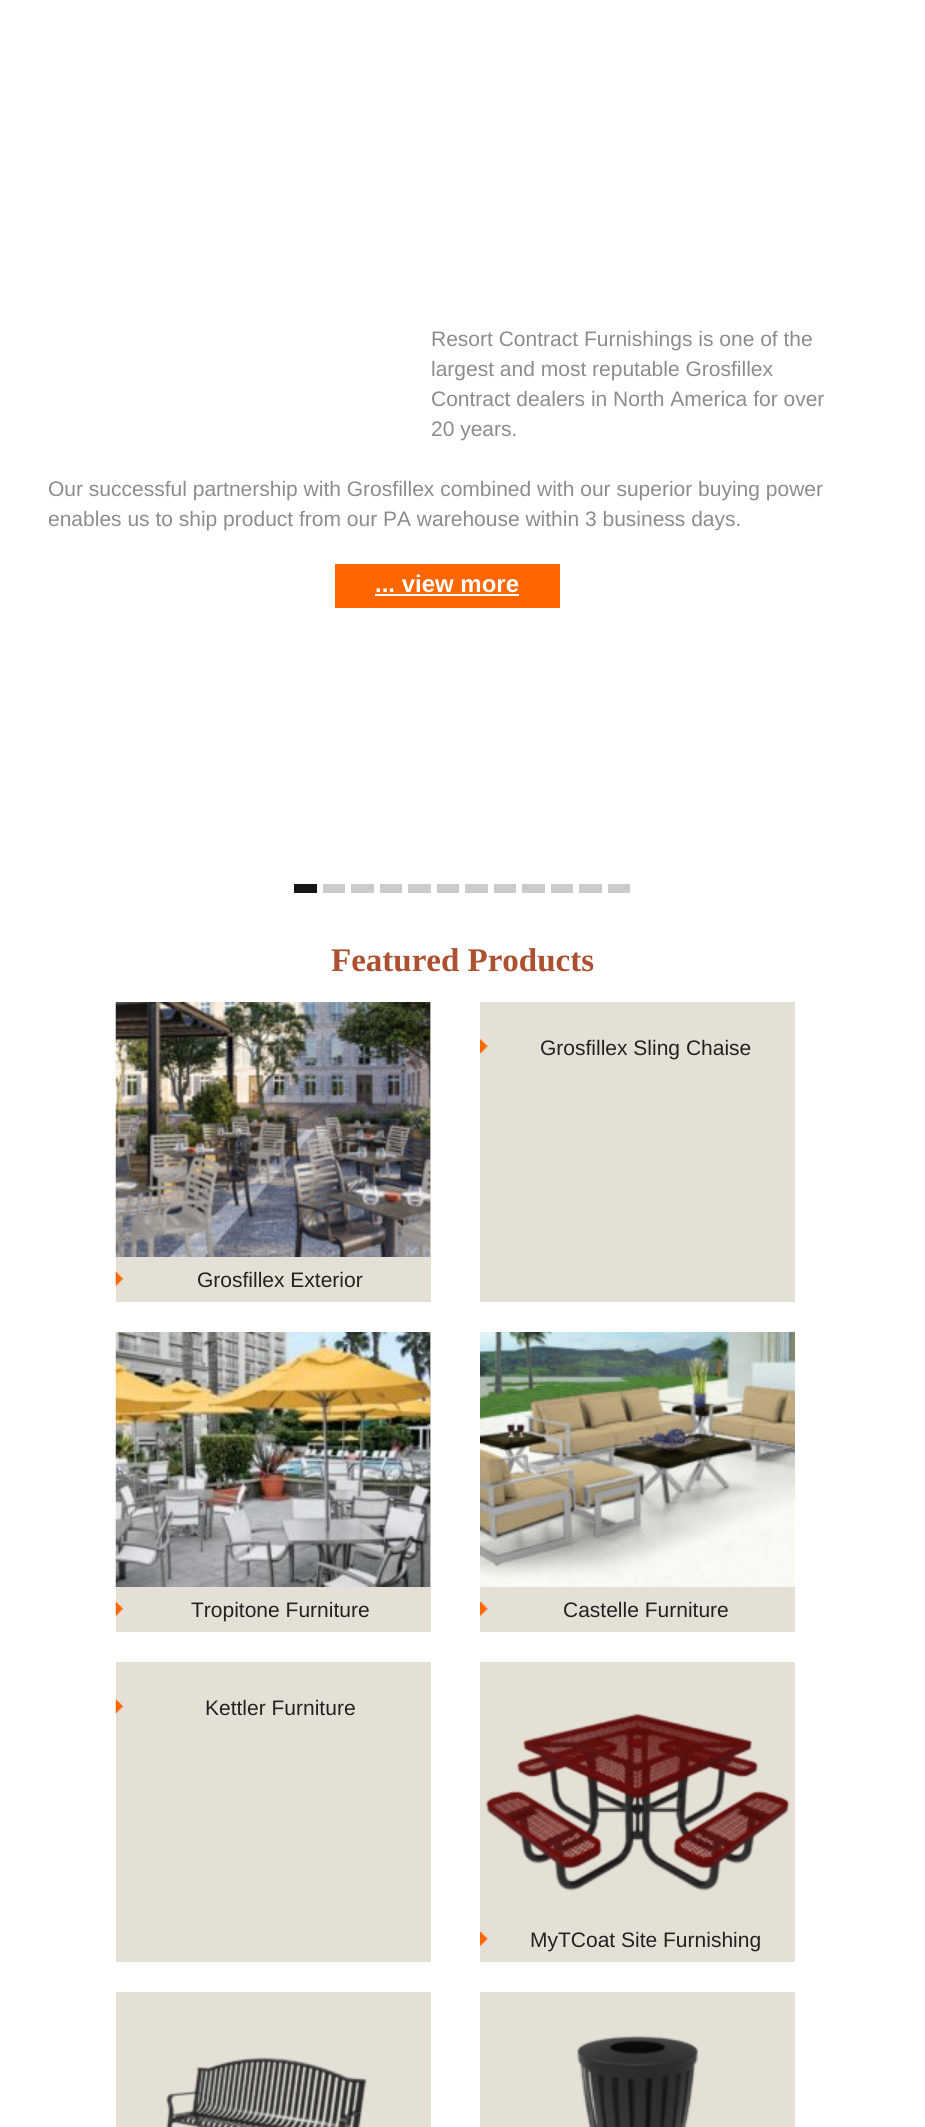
#include <cairo.h>
#include <math.h>
#include <stddef.h>

typedef struct { double x, y; const char *s; } line_t;
typedef struct { double x, y, w, h; unsigned color; } box_t;

static void ink(cairo_t *ctx, unsigned color) {
    cairo_set_source_rgb(ctx, (color >> 16) / 255.0, (color >> 8 & 255) / 255.0, (color & 255) / 255.0);
}

static void paste(cairo_t *ctx, const char *path, double x, double y, double w, double h) {
    cairo_surface_t *image = cairo_image_surface_create_from_png(path);
    cairo_save(ctx);
    cairo_set_source_surface(ctx, image, x, y);
    cairo_rectangle(ctx, x, y, w, h);
    cairo_fill(ctx);
    cairo_restore(ctx);
    cairo_surface_destroy(image);
}

int main(void) {
    cairo_surface_t *surface = cairo_image_surface_create(CAIRO_FORMAT_RGB24, 925, 2127);
    cairo_t *ctx = cairo_create(surface);
    cairo_font_options_t *options = cairo_font_options_create();
    cairo_font_options_set_hint_metrics(options, CAIRO_HINT_METRICS_OFF);
    cairo_font_options_set_hint_style(options, CAIRO_HINT_STYLE_NONE);
    cairo_set_font_options(ctx, options);
    cairo_set_miter_limit(ctx, 4);
    ink(ctx, 0xFFFFFF);
    cairo_paint(ctx);
    cairo_select_font_face(ctx, "Liberation Sans", CAIRO_FONT_SLANT_NORMAL, CAIRO_FONT_WEIGHT_NORMAL);
    cairo_set_font_size(ctx, 21);
    ink(ctx, 0x8C8C8C);
    {
        static const line_t items[] = {
            {431, 346, "Resort Contract Furnishings is one of the"},
            {431, 376, "largest and most reputable Grosfillex"},
            {431, 406, "Contract dealers in North America for over"},
            {431, 436, "20 years."},
            {48, 496, "Our successful partnership with Grosfillex combined with our superior buying power"},
            {48, 526, "enables us to ship product from our PA warehouse within 3 business days."},
        };
        for (size_t i = 0; i < sizeof items / sizeof *items; i++) {
            cairo_move_to(ctx, items[i].x, items[i].y);
            cairo_show_text(ctx, items[i].s);
        }
    }
    ink(ctx, 0xFF6600);
    cairo_rectangle(ctx, 335, 564, 225, 44);
    cairo_fill(ctx);
    cairo_select_font_face(ctx, "Liberation Sans", CAIRO_FONT_SLANT_NORMAL, CAIRO_FONT_WEIGHT_BOLD);
    cairo_set_font_size(ctx, 24);
    ink(ctx, 0xFFFFFF);
    cairo_move_to(ctx, 375, 592);
    cairo_show_text(ctx, "... view more");
    {
        static const box_t items[] = {
            {375, 594, 144, 2, 0xFFFFFF},
            {294, 884, 23, 9, 0x161616},
            {323, 884, 22, 9, 0xCBCBCB},
            {351, 884, 23, 9, 0xCBCBCB},
            {380, 884, 22, 9, 0xCBCBCB},
            {408, 884, 23, 9, 0xCBCBCB},
            {437, 884, 22, 9, 0xCBCBCB},
            {465, 884, 23, 9, 0xCBCBCB},
            {494, 884, 22, 9, 0xCBCBCB},
            {522, 884, 23, 9, 0xCBCBCB},
            {551, 884, 22, 9, 0xCBCBCB},
            {579, 884, 23, 9, 0xCBCBCB},
            {608, 884, 22, 9, 0xCBCBCB},
        };
        for (size_t i = 0; i < sizeof items / sizeof *items; i++) {
            ink(ctx, items[i].color);
            cairo_rectangle(ctx, items[i].x, items[i].y, items[i].w, items[i].h);
            cairo_fill(ctx);
        }
    }
    cairo_select_font_face(ctx, "Liberation Serif", CAIRO_FONT_SLANT_NORMAL, CAIRO_FONT_WEIGHT_BOLD);
    cairo_set_font_size(ctx, 33);
    ink(ctx, 0xAC5031);
    cairo_move_to(ctx, 331, 971);
    cairo_show_text(ctx, "Featured Products");
    ink(ctx, 0xE4E0D6);
    cairo_rectangle(ctx, 480, 1002, 315, 300);
    cairo_fill(ctx);
    paste(ctx, "media/1.png", 480, 1039, 8, 14);
    cairo_select_font_face(ctx, "Liberation Sans", CAIRO_FONT_SLANT_NORMAL, CAIRO_FONT_WEIGHT_NORMAL);
    cairo_set_font_size(ctx, 21);
    ink(ctx, 0x222222);
    cairo_move_to(ctx, 540, 1055);
    cairo_show_text(ctx, "Grosfillex Sling Chaise");
    ink(ctx, 0xE4E0D6);
    cairo_rectangle(ctx, 116, 1002, 315, 300);
    cairo_fill(ctx);
    paste(ctx, "media/2.png", 115, 1002, 316, 255);
    paste(ctx, "media/3.png", 115, 1272, 8, 14);
    ink(ctx, 0x222222);
    cairo_move_to(ctx, 197, 1287);
    cairo_show_text(ctx, "Grosfillex Exterior");
    ink(ctx, 0xE4E0D6);
    cairo_rectangle(ctx, 116, 1332, 315, 300);
    cairo_fill(ctx);
    paste(ctx, "media/4.png", 115, 1332, 316, 255);
    paste(ctx, "media/3.png", 115, 1602, 8, 14);
    ink(ctx, 0x222222);
    cairo_move_to(ctx, 191, 1617);
    cairo_show_text(ctx, "Tropitone Furniture");
    ink(ctx, 0xE4E0D6);
    cairo_rectangle(ctx, 480, 1587, 315, 45);
    cairo_fill(ctx);
    paste(ctx, "media/5.png", 480, 1332, 315, 255);
    paste(ctx, "media/6.png", 480, 1602, 8, 14);
    ink(ctx, 0x222222);
    cairo_move_to(ctx, 563, 1617);
    cairo_show_text(ctx, "Castelle Furniture");
    ink(ctx, 0xE4E0D6);
    cairo_rectangle(ctx, 116, 1662, 315, 300);
    cairo_fill(ctx);
    paste(ctx, "media/7.png", 115, 1699, 8, 14);
    ink(ctx, 0x222222);
    cairo_move_to(ctx, 205, 1715);
    cairo_show_text(ctx, "Kettler Furniture");
    ink(ctx, 0xE4E0D6);
    cairo_rectangle(ctx, 480, 1662, 315, 300);
    cairo_fill(ctx);
    paste(ctx, "media/8.png", 485, 1713, 305, 178);
    paste(ctx, "media/6.png", 480, 1932, 8, 14);
    ink(ctx, 0x222222);
    cairo_move_to(ctx, 530, 1947);
    cairo_show_text(ctx, "MyTCoat Site Furnishing");
    ink(ctx, 0xE4E0D6);
    cairo_rectangle(ctx, 116, 1992, 315, 135);
    cairo_fill(ctx);
    paste(ctx, "media/9.png", 166, 2057, 201, 70);
    cairo_rectangle(ctx, 480, 1992, 315, 135);
    cairo_fill(ctx);
    paste(ctx, "media/10.png", 577, 2035, 122, 92);
    cairo_surface_write_to_png(surface, "image.png");
    cairo_font_options_destroy(options);
    cairo_destroy(ctx);
    cairo_surface_destroy(surface);
    return 0;
}
